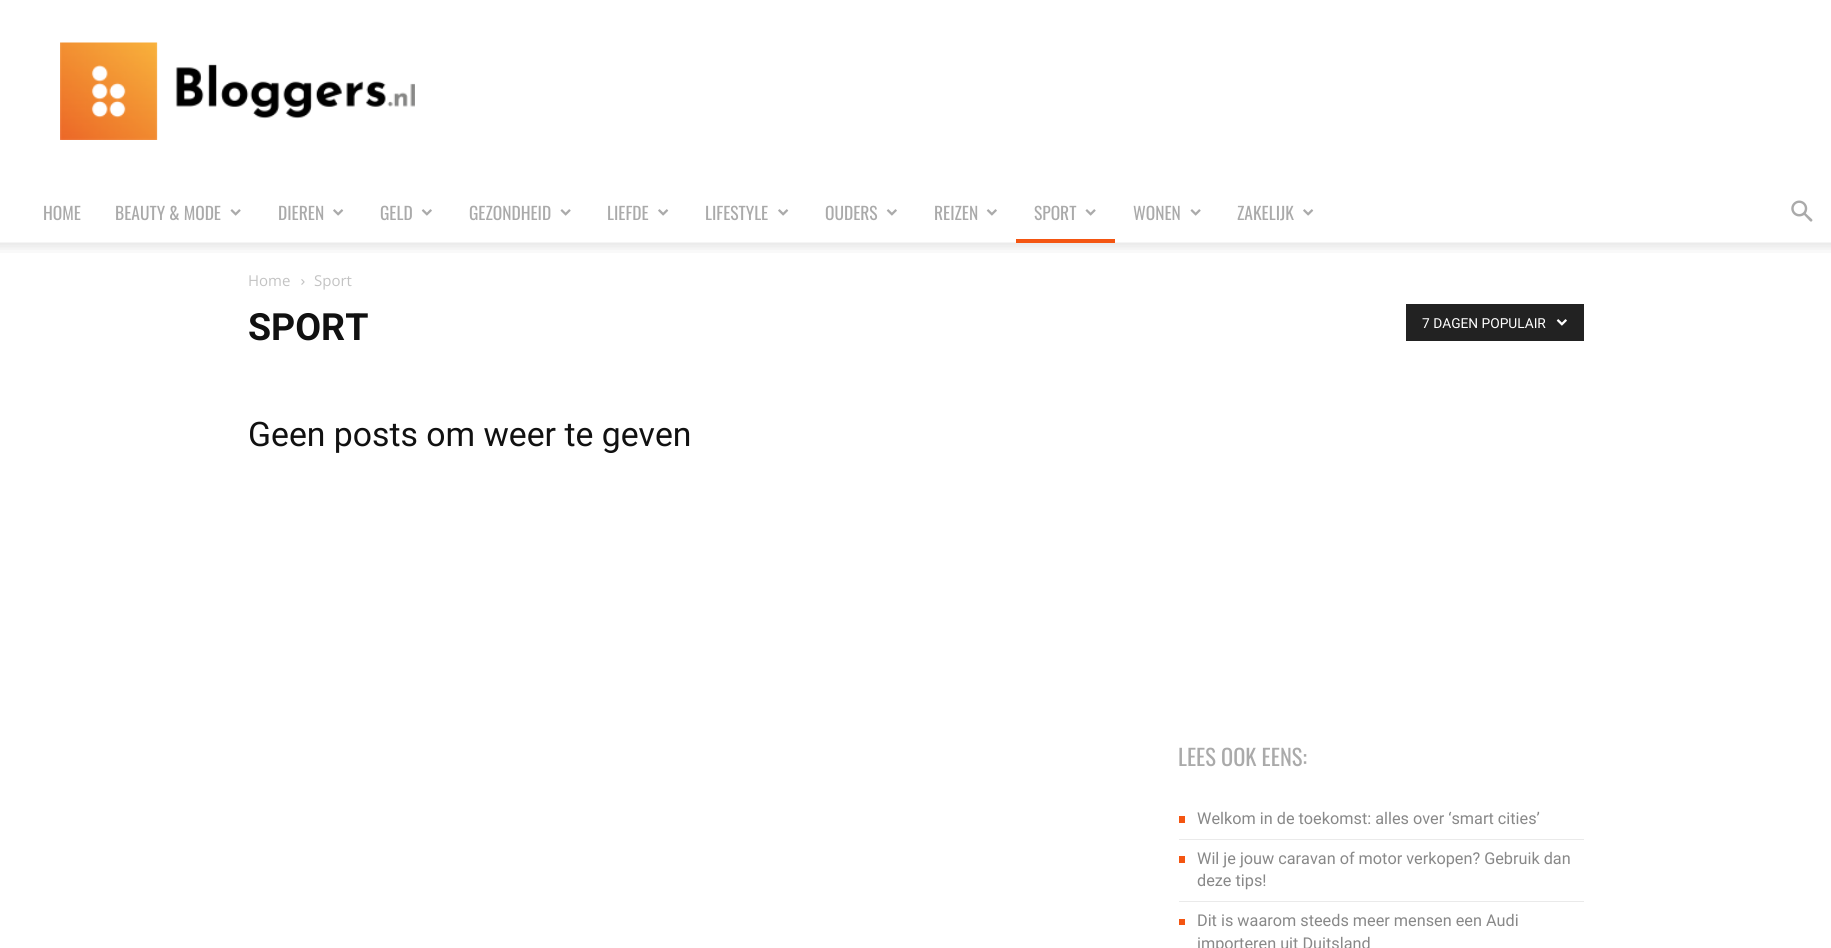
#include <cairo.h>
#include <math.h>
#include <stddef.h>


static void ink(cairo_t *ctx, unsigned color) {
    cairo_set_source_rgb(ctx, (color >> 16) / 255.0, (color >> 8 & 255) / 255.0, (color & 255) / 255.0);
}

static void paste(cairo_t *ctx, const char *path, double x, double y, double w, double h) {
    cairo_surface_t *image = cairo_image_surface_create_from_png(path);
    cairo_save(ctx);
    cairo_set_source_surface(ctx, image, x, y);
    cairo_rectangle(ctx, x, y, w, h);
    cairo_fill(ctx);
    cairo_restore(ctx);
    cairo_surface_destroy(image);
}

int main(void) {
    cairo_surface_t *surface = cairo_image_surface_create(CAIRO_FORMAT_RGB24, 1831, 948);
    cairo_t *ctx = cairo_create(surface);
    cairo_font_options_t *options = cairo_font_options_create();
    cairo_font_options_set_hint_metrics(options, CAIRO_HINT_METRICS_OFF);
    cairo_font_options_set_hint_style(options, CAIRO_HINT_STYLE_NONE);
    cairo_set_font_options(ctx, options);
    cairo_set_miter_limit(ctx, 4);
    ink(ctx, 0xFFFFFF);
    cairo_paint(ctx);
    paste(ctx, "media/1.png", 60, 42, 355, 98);
    cairo_select_font_face(ctx, "Oswald", CAIRO_FONT_SLANT_NORMAL, CAIRO_FONT_WEIGHT_NORMAL);
    cairo_set_font_size(ctx, 17.5);
    ink(ctx, 0xAAAAAA);
    cairo_move_to(ctx, 43, 220);
    cairo_show_text(ctx, "HOME");
    cairo_move_to(ctx, 115, 220);
    cairo_show_text(ctx, "BEAUTY & MODE");
    paste(ctx, "media/2.png", 230, 209, 11, 7);
    cairo_move_to(ctx, 278, 220);
    cairo_show_text(ctx, "DIEREN");
    paste(ctx, "media/3.png", 333, 209, 11, 7);
    cairo_move_to(ctx, 380, 220);
    cairo_show_text(ctx, "GELD");
    paste(ctx, "media/4.png", 421, 209, 11, 7);
    cairo_move_to(ctx, 469, 220);
    cairo_show_text(ctx, "GEZONDHEID");
    paste(ctx, "media/2.png", 560, 209, 11, 7);
    cairo_move_to(ctx, 607, 220);
    cairo_show_text(ctx, "LIEFDE");
    paste(ctx, "media/3.png", 658, 209, 11, 7);
    cairo_move_to(ctx, 705, 220);
    cairo_show_text(ctx, "LIFESTYLE");
    paste(ctx, "media/3.png", 778, 209, 11, 7);
    cairo_move_to(ctx, 825, 220);
    cairo_show_text(ctx, "OUDERS");
    paste(ctx, "media/4.png", 886, 209, 11, 7);
    cairo_move_to(ctx, 934, 220);
    cairo_show_text(ctx, "REIZEN");
    paste(ctx, "media/4.png", 986, 209, 11, 7);
    cairo_move_to(ctx, 1034, 220);
    cairo_show_text(ctx, "SPORT");
    paste(ctx, "media/2.png", 1085, 209, 11, 7);
    paste(ctx, "media/6.png", 0, 242, 1831, 11);
    ink(ctx, 0xF45511);
    cairo_rectangle(ctx, 1016, 239, 99, 4);
    cairo_fill(ctx);
    ink(ctx, 0xAAAAAA);
    cairo_move_to(ctx, 1133, 220);
    cairo_show_text(ctx, "WONEN");
    paste(ctx, "media/2.png", 1190, 209, 11, 7);
    cairo_move_to(ctx, 1237, 220);
    cairo_show_text(ctx, "ZAKELIJK");
    paste(ctx, "media/3.png", 1303, 209, 11, 7);
    paste(ctx, "media/5.png", 1791, 200, 22, 22);
    cairo_select_font_face(ctx, "Open Sans", CAIRO_FONT_SLANT_NORMAL, CAIRO_FONT_WEIGHT_NORMAL);
    cairo_set_font_size(ctx, 15);
    ink(ctx, 0xC3C3C3);
    cairo_move_to(ctx, 248, 286);
    cairo_show_text(ctx, "Home");
    paste(ctx, "media/7.png", 301, 279, 4, 6);
    cairo_move_to(ctx, 314, 286);
    cairo_show_text(ctx, "Sport");
    cairo_select_font_face(ctx, "Roboto", CAIRO_FONT_SLANT_NORMAL, CAIRO_FONT_WEIGHT_BOLD);
    cairo_set_font_size(ctx, 37.5);
    ink(ctx, 0x111111);
    cairo_move_to(ctx, 248, 340);
    cairo_show_text(ctx, "SPORT");
    ink(ctx, 0x222222);
    cairo_rectangle(ctx, 1406, 304, 178, 37);
    cairo_fill(ctx);
    cairo_select_font_face(ctx, "Roboto", CAIRO_FONT_SLANT_NORMAL, CAIRO_FONT_WEIGHT_NORMAL);
    cairo_set_font_size(ctx, 13.75);
    ink(ctx, 0xFFFFFF);
    cairo_move_to(ctx, 1422, 328);
    cairo_show_text(ctx, "7 DAGEN POPULAIR");
    paste(ctx, "media/8.png", 1556, 319, 11, 7);
    cairo_set_font_size(ctx, 33.75);
    ink(ctx, 0x111111);
    cairo_move_to(ctx, 248, 446);
    cairo_show_text(ctx, "Geen posts om weer te geven");
    cairo_select_font_face(ctx, "Oswald", CAIRO_FONT_SLANT_NORMAL, CAIRO_FONT_WEIGHT_NORMAL);
    cairo_set_font_size(ctx, 22.5);
    ink(ctx, 0xAAAAAA);
    cairo_move_to(ctx, 1178, 766);
    cairo_show_text(ctx, "LEES OOK EENS:");
    ink(ctx, 0xEAEAEA);
    cairo_rectangle(ctx, 1179, 839, 405, 1);
    cairo_fill(ctx);
    ink(ctx, 0xF45511);
    cairo_rectangle(ctx, 1179, 816, 6, 7);
    cairo_fill(ctx);
    cairo_select_font_face(ctx, "Roboto", CAIRO_FONT_SLANT_NORMAL, CAIRO_FONT_WEIGHT_NORMAL);
    cairo_set_font_size(ctx, 16.25);
    ink(ctx, 0x888888);
    cairo_move_to(ctx, 1197, 824);
    cairo_show_text(ctx, "Welkom in de toekomst: alles over ‘smart cities’");
    ink(ctx, 0xEAEAEA);
    cairo_rectangle(ctx, 1179, 901, 405, 1);
    cairo_fill(ctx);
    ink(ctx, 0xF45511);
    cairo_rectangle(ctx, 1179, 856, 6, 7);
    cairo_fill(ctx);
    ink(ctx, 0x888888);
    cairo_move_to(ctx, 1197, 864);
    cairo_show_text(ctx, "Wil je jouw caravan of motor verkopen? Gebruik dan");
    cairo_move_to(ctx, 1197, 886);
    cairo_show_text(ctx, "deze tips!");
    ink(ctx, 0xF45511);
    cairo_rectangle(ctx, 1179, 919, 6, 6);
    cairo_fill(ctx);
    ink(ctx, 0x888888);
    cairo_move_to(ctx, 1197, 926);
    cairo_show_text(ctx, "Dit is waarom steeds meer mensen een Audi");
    cairo_move_to(ctx, 1197, 949);
    cairo_show_text(ctx, "importeren uit Duitsland");
    cairo_surface_write_to_png(surface, "image.png");
    cairo_font_options_destroy(options);
    cairo_destroy(ctx);
    cairo_surface_destroy(surface);
    return 0;
}
